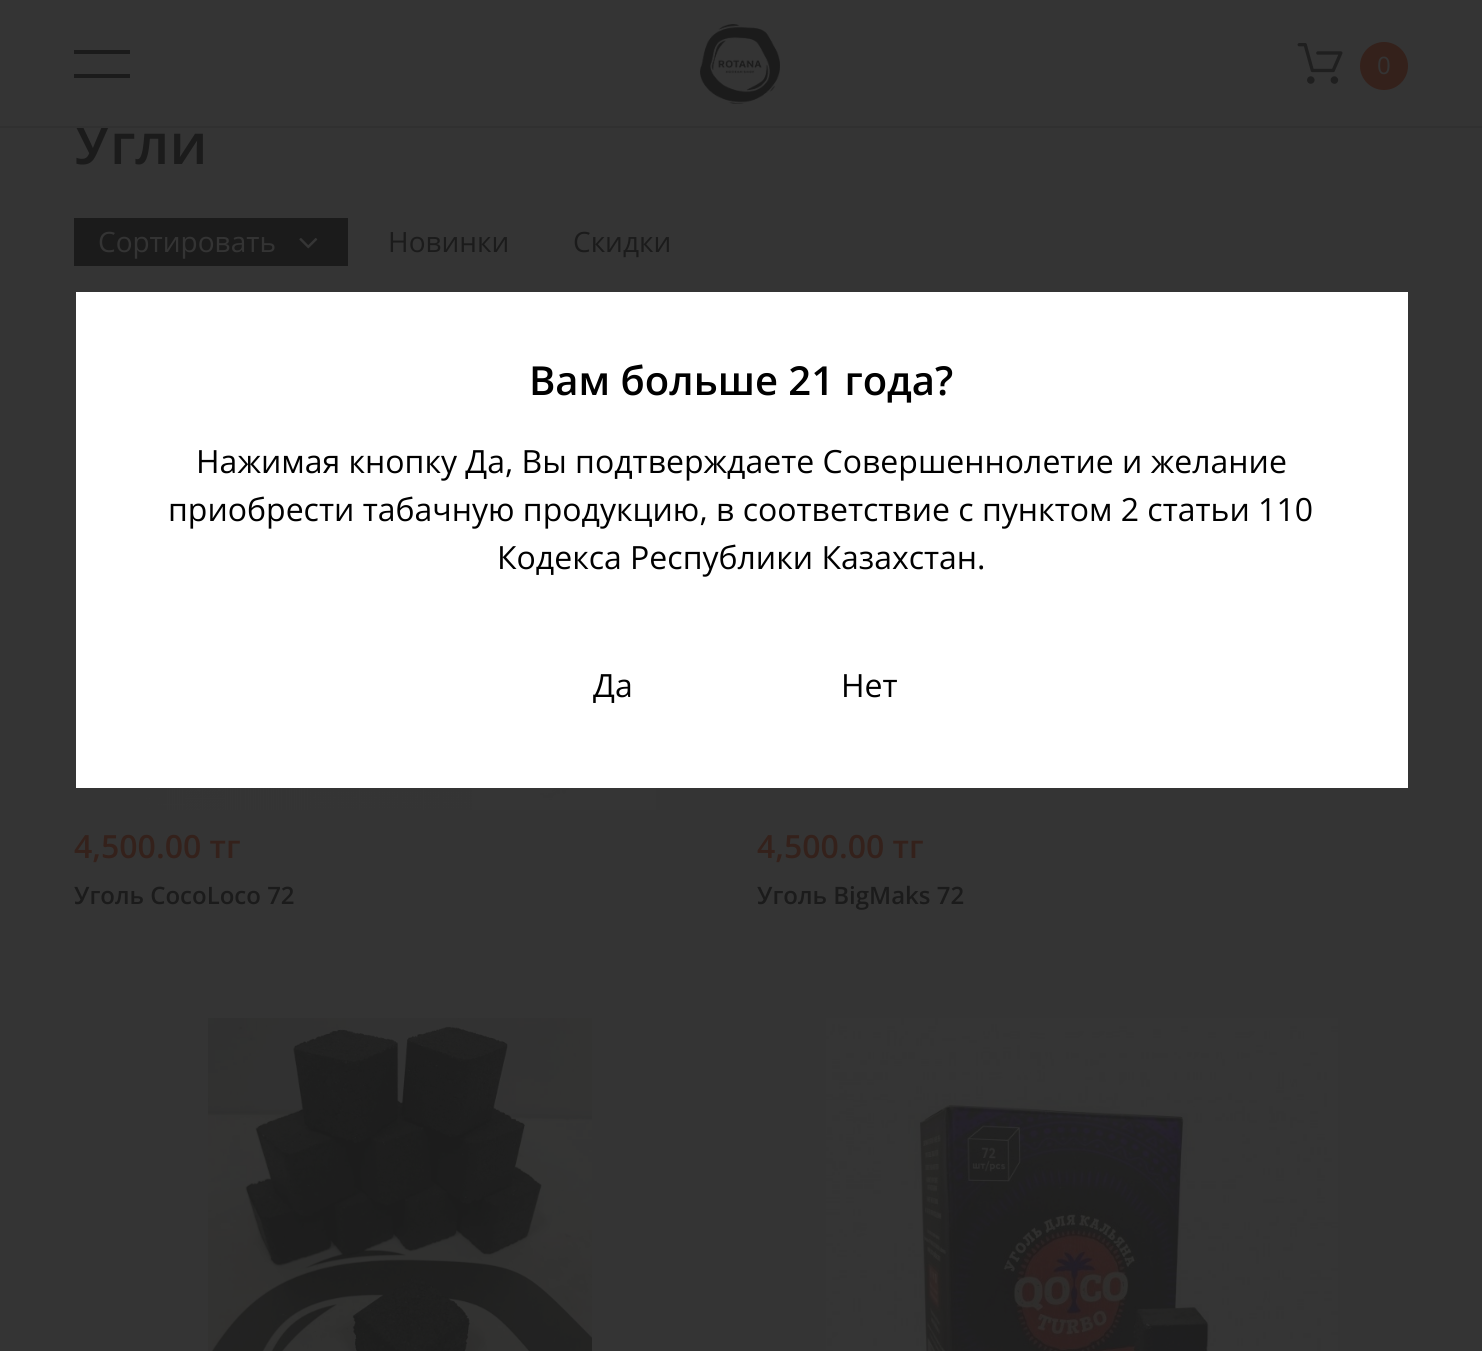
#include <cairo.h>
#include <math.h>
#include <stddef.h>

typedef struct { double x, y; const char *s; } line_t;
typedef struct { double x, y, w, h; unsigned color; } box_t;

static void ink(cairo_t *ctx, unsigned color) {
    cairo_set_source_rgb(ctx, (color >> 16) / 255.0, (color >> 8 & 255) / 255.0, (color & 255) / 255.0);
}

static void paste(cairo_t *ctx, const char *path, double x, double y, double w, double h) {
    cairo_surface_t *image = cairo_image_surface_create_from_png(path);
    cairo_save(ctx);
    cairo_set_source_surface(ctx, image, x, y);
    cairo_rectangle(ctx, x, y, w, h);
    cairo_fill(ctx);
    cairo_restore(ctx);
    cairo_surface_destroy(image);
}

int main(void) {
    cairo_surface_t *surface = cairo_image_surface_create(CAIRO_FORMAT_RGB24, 1482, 1351);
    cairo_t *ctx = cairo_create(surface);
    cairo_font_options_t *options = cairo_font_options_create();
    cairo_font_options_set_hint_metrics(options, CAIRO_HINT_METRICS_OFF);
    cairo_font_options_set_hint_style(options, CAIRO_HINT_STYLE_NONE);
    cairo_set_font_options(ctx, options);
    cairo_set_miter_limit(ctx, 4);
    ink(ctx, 0x343434);
    cairo_paint(ctx);
    cairo_select_font_face(ctx, "Open Sans SemiBold", CAIRO_FONT_SLANT_NORMAL, CAIRO_FONT_WEIGHT_NORMAL);
    cairo_set_font_size(ctx, 56);
    ink(ctx, 0x1B1B1B);
    cairo_move_to(ctx, 74, 164);
    cairo_show_text(ctx, "Угли");
    {
        static const box_t items[] = {
            {74, 124, 36, 2, 0x343434},
            {0, 126, 1482, 2, 0x303030},
            {74, 50, 56, 4, 0x1B1B1B},
            {74, 74, 56, 4, 0x1B1B1B},
        };
        for (size_t i = 0; i < sizeof items / sizeof *items; i++) {
            ink(ctx, items[i].color);
            cairo_rectangle(ctx, items[i].x, items[i].y, items[i].w, items[i].h);
            cairo_fill(ctx);
        }
    }
    paste(ctx, "media/1.png", 700, 24, 80, 80);
    paste(ctx, "media/2.png", 1297, 43, 46, 41);
    ink(ctx, 0x34211B);
    cairo_arc(ctx, 1384, 66, 24, 0, 2 * M_PI);
    cairo_fill(ctx);
    cairo_select_font_face(ctx, "Open Sans", CAIRO_FONT_SLANT_NORMAL, CAIRO_FONT_WEIGHT_NORMAL);
    cairo_set_font_size(ctx, 24);
    ink(ctx, 0x343434);
    cairo_move_to(ctx, 1377, 74);
    cairo_show_text(ctx, "0");
    ink(ctx, 0x1B1B1B);
    cairo_rectangle(ctx, 74, 218, 274, 48);
    cairo_fill(ctx);
    cairo_set_font_size(ctx, 28);
    ink(ctx, 0x343434);
    cairo_move_to(ctx, 98, 252);
    cairo_show_text(ctx, "Сортировать");
    paste(ctx, "media/3.png", 299, 238, 19, 11);
    ink(ctx, 0x1B1B1B);
    cairo_move_to(ctx, 388, 252);
    cairo_show_text(ctx, "Новинки");
    cairo_move_to(ctx, 573, 252);
    cairo_show_text(ctx, "Скидки");
    paste(ctx, "media/4.png", 144, 788, 512, 22);
    cairo_select_font_face(ctx, "Open Sans SemiBold", CAIRO_FONT_SLANT_NORMAL, CAIRO_FONT_WEIGHT_NORMAL);
    cairo_set_font_size(ctx, 32);
    ink(ctx, 0x34211B);
    cairo_move_to(ctx, 74, 858);
    cairo_show_text(ctx, "4,500.00 тг");
    cairo_set_font_size(ctx, 24);
    ink(ctx, 0x1B1B1B);
    cairo_move_to(ctx, 74, 904);
    cairo_show_text(ctx, "Уголь CocoLoco 72");
    cairo_set_font_size(ctx, 32);
    ink(ctx, 0x34211B);
    cairo_move_to(ctx, 757, 858);
    cairo_show_text(ctx, "4,500.00 тг");
    cairo_set_font_size(ctx, 24);
    ink(ctx, 0x1B1B1B);
    cairo_move_to(ctx, 757, 904);
    cairo_show_text(ctx, "Уголь BigMaks 72");
    paste(ctx, "media/5.png", 208, 1018, 384, 333);
    paste(ctx, "media/6.png", 826, 1018, 512, 333);
    ink(ctx, 0xFFFFFF);
    cairo_rectangle(ctx, 76, 292, 1332, 496);
    cairo_fill(ctx);
    cairo_set_font_size(ctx, 40);
    ink(ctx, 0x000000);
    cairo_move_to(ctx, 529, 395);
    cairo_show_text(ctx, "Вам больше 21 года?");
    cairo_select_font_face(ctx, "Open Sans", CAIRO_FONT_SLANT_NORMAL, CAIRO_FONT_WEIGHT_NORMAL);
    cairo_set_font_size(ctx, 32);
    {
        static const line_t items[] = {
            {196, 473, "Нажимая кнопку Да, Вы подтверждаете Совершеннолетие и желание"},
            {168, 521, "приобрести табачную продукцию, в соответствие с пунктом 2 статьи 110"},
            {497, 569, "Кодекса Республики Казахстан."},
            {593, 697, "Да"},
            {841, 697, "Нет"},
        };
        for (size_t i = 0; i < sizeof items / sizeof *items; i++) {
            cairo_move_to(ctx, items[i].x, items[i].y);
            cairo_show_text(ctx, items[i].s);
        }
    }
    cairo_surface_write_to_png(surface, "image.png");
    cairo_font_options_destroy(options);
    cairo_destroy(ctx);
    cairo_surface_destroy(surface);
    return 0;
}
